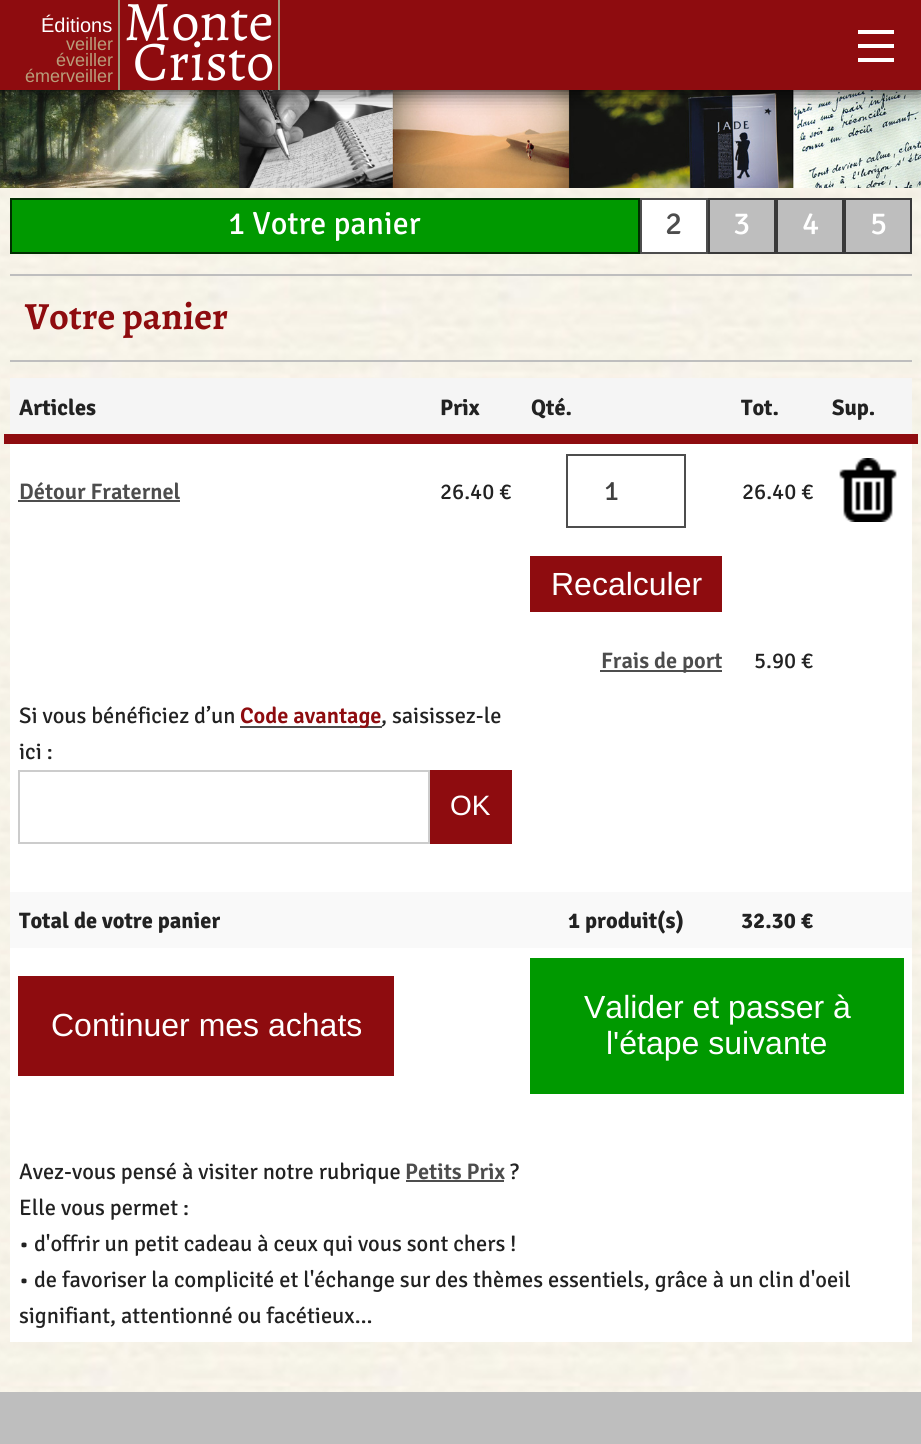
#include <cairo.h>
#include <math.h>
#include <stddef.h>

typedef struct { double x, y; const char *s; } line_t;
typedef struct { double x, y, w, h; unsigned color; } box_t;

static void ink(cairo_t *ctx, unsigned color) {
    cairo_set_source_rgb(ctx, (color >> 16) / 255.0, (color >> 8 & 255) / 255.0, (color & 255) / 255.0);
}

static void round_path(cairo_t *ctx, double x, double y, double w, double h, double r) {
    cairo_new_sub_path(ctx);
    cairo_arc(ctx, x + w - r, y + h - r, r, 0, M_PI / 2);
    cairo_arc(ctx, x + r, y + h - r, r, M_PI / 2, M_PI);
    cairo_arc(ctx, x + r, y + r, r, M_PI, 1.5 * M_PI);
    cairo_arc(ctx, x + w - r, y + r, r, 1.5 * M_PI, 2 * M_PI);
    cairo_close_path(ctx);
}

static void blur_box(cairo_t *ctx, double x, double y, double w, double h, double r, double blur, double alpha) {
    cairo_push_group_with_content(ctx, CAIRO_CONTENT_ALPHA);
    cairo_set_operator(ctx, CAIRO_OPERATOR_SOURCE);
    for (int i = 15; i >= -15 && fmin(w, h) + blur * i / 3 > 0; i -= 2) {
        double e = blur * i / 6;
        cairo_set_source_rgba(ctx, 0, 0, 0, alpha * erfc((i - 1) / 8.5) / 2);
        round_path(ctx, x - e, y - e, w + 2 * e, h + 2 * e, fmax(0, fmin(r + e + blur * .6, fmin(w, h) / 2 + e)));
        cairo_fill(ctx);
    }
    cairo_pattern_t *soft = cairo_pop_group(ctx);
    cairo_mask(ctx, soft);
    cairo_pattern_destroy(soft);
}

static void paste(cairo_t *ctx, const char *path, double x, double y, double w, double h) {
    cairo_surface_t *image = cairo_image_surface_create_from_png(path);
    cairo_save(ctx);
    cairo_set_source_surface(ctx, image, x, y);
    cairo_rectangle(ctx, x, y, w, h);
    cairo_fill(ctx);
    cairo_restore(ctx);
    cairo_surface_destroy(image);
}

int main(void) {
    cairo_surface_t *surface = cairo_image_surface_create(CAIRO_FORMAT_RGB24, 921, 1444);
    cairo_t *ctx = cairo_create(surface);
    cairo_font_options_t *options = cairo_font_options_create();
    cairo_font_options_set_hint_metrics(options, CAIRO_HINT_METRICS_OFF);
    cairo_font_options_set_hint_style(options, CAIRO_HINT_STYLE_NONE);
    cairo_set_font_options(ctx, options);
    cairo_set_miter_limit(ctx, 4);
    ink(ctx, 0xFFFFFF);
    cairo_paint(ctx);
    paste(ctx, "media/2.png", 0, 90, 921, 98);
    ink(ctx, 0x000000);
    blur_box(ctx, 0, 0, 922, 90, 0, 10, 1);
    ink(ctx, 0x8E0C0F);
    cairo_rectangle(ctx, 0, 0, 921, 90);
    cairo_fill(ctx);
    cairo_select_font_face(ctx, "Liberation Sans", CAIRO_FONT_SLANT_NORMAL, CAIRO_FONT_WEIGHT_NORMAL);
    cairo_set_font_size(ctx, 20);
    ink(ctx, 0xFFFFFF);
    cairo_move_to(ctx, 41, 32);
    cairo_show_text(ctx, "Éditions");
    ink(ctx, 0xA1967B);
    cairo_rectangle(ctx, 278, 0, 2, 90);
    cairo_fill(ctx);
    cairo_rectangle(ctx, 118, 0, 2, 90);
    cairo_fill(ctx);
    cairo_select_font_face(ctx, "Alegreya", CAIRO_FONT_SLANT_NORMAL, CAIRO_FONT_WEIGHT_NORMAL);
    cairo_set_font_size(ctx, 56);
    ink(ctx, 0xFFFFFF);
    cairo_move_to(ctx, 124, 40);
    cairo_show_text(ctx, "Monte");
    cairo_move_to(ctx, 133, 80);
    cairo_show_text(ctx, "Cristo");
    cairo_select_font_face(ctx, "Liberation Sans", CAIRO_FONT_SLANT_NORMAL, CAIRO_FONT_WEIGHT_NORMAL);
    cairo_set_font_size(ctx, 18);
    ink(ctx, 0xB99D7A);
    {
        static const line_t items[] = {
            {66, 50, "veiller"},
            {56, 66, "éveiller"},
            {25, 82, "émerveiller"},
        };
        for (size_t i = 0; i < sizeof items / sizeof *items; i++) {
            cairo_move_to(ctx, items[i].x, items[i].y);
            cairo_show_text(ctx, items[i].s);
        }
    }
    {
        static const box_t items[] = {
            {858, 58, 36, 4, 0xFFFFFF},
            {858, 44, 36, 4, 0xFFFFFF},
            {858, 30, 36, 4, 0xFFFFFF},
        };
        for (size_t i = 0; i < sizeof items / sizeof *items; i++) {
            ink(ctx, items[i].color);
            cairo_rectangle(ctx, items[i].x, items[i].y, items[i].w, items[i].h);
            cairo_fill(ctx);
        }
    }
    paste(ctx, "media/1.png", 0, 188, 921, 1204);
    ink(ctx, 0x009900);
    cairo_rectangle(ctx, 11, 199, 628, 54);
    cairo_fill_preserve(ctx);
    ink(ctx, 0x002E00);
    cairo_stroke(ctx);
    cairo_select_font_face(ctx, "Signika", CAIRO_FONT_SLANT_NORMAL, CAIRO_FONT_WEIGHT_NORMAL);
    cairo_set_font_size(ctx, 32);
    ink(ctx, 0xFFFFFF);
    cairo_move_to(ctx, 228, 234);
    cairo_show_text(ctx, "1 Votre panier");
    cairo_rectangle(ctx, 641, 199, 66, 54);
    cairo_fill_preserve(ctx);
    ink(ctx, 0x4D4D4D);
    cairo_stroke(ctx);
    cairo_move_to(ctx, 665, 234);
    cairo_show_text(ctx, "2");
    ink(ctx, 0xBEBEBE);
    cairo_rectangle(ctx, 709, 199, 66, 54);
    cairo_fill_preserve(ctx);
    ink(ctx, 0x393939);
    cairo_stroke(ctx);
    ink(ctx, 0xFFFFFF);
    cairo_move_to(ctx, 733, 234);
    cairo_show_text(ctx, "3");
    ink(ctx, 0xBEBEBE);
    cairo_rectangle(ctx, 777, 199, 66, 54);
    cairo_fill_preserve(ctx);
    ink(ctx, 0x393939);
    cairo_stroke(ctx);
    ink(ctx, 0xFFFFFF);
    cairo_move_to(ctx, 802, 234);
    cairo_show_text(ctx, "4");
    ink(ctx, 0xBEBEBE);
    cairo_rectangle(ctx, 845, 199, 66, 54);
    cairo_fill_preserve(ctx);
    ink(ctx, 0x393939);
    cairo_stroke(ctx);
    ink(ctx, 0xFFFFFF);
    cairo_move_to(ctx, 870, 234);
    cairo_show_text(ctx, "5");
    ink(ctx, 0xBEBEBE);
    cairo_rectangle(ctx, 10, 274, 902, 2);
    cairo_fill(ctx);
    cairo_rectangle(ctx, 10, 360, 902, 2);
    cairo_fill(ctx);
    cairo_select_font_face(ctx, "Alegreya", CAIRO_FONT_SLANT_NORMAL, CAIRO_FONT_WEIGHT_BOLD);
    cairo_set_font_size(ctx, 38.5);
    ink(ctx, 0x8E0C0F);
    cairo_move_to(ctx, 25, 329);
    cairo_show_text(ctx, "Votre panier");
    ink(ctx, 0xFFFFFF);
    cairo_rectangle(ctx, 10, 444, 902, 94);
    cairo_fill(ctx);
    ink(ctx, 0xF5F5F5);
    cairo_rectangle(ctx, 10, 378, 902, 56);
    cairo_fill(ctx);
    cairo_select_font_face(ctx, "Signika", CAIRO_FONT_SLANT_NORMAL, CAIRO_FONT_WEIGHT_BOLD);
    cairo_set_font_size(ctx, 22.4);
    ink(ctx, 0x222222);
    {
        static const line_t items[] = {
            {19, 415, "Articles"},
            {440, 415, "Prix"},
            {531, 415, "Qté."},
            {741, 415, "Tot."},
        };
        for (size_t i = 0; i < sizeof items / sizeof *items; i++) {
            cairo_move_to(ctx, items[i].x, items[i].y);
            cairo_show_text(ctx, items[i].s);
        }
    }
    ink(ctx, 0x8E0C0F);
    cairo_rectangle(ctx, 4, 434, 914, 10);
    cairo_fill(ctx);
    ink(ctx, 0x222222);
    cairo_move_to(ctx, 832, 415);
    cairo_show_text(ctx, "Sup.");
    cairo_select_font_face(ctx, "Signika SemiBold", CAIRO_FONT_SLANT_NORMAL, CAIRO_FONT_WEIGHT_NORMAL);
    ink(ctx, 0x4D4D4D);
    cairo_move_to(ctx, 19, 499);
    cairo_show_text(ctx, "Détour Fraternel");
    cairo_rectangle(ctx, 18, 500, 162, 2);
    cairo_fill(ctx);
    cairo_select_font_face(ctx, "Signika", CAIRO_FONT_SLANT_NORMAL, CAIRO_FONT_WEIGHT_NORMAL);
    ink(ctx, 0x222222);
    cairo_move_to(ctx, 440, 499);
    cairo_show_text(ctx, "26.40 €");
    cairo_rectangle(ctx, 567, 455, 118, 72);
    ink(ctx, 0x4D4D4D);
    cairo_stroke(ctx);
    cairo_set_font_size(ctx, 28);
    ink(ctx, 0x404040);
    cairo_move_to(ctx, 604, 500);
    cairo_show_text(ctx, "1");
    cairo_set_font_size(ctx, 22.4);
    ink(ctx, 0x222222);
    cairo_move_to(ctx, 742, 499);
    cairo_show_text(ctx, "26.40 €");
    paste(ctx, "media/3.png", 839, 458, 58, 64);
    ink(ctx, 0xFFFFFF);
    cairo_rectangle(ctx, 10, 538, 902, 94);
    cairo_fill(ctx);
    ink(ctx, 0x8E0C0F);
    cairo_rectangle(ctx, 530, 556, 192, 56);
    cairo_fill(ctx);
    cairo_select_font_face(ctx, "Liberation Sans", CAIRO_FONT_SLANT_NORMAL, CAIRO_FONT_WEIGHT_NORMAL);
    cairo_set_font_size(ctx, 32);
    ink(ctx, 0xFFFFFF);
    cairo_move_to(ctx, 551, 595);
    cairo_show_text(ctx, "Recalculer");
    cairo_rectangle(ctx, 10, 632, 902, 56);
    cairo_fill(ctx);
    ink(ctx, 0x4D4D4D);
    cairo_rectangle(ctx, 600, 670, 122, 2);
    cairo_fill(ctx);
    cairo_select_font_face(ctx, "Signika SemiBold", CAIRO_FONT_SLANT_NORMAL, CAIRO_FONT_WEIGHT_NORMAL);
    cairo_set_font_size(ctx, 22.4);
    cairo_move_to(ctx, 601, 668);
    cairo_show_text(ctx, "Frais de port");
    cairo_select_font_face(ctx, "Signika", CAIRO_FONT_SLANT_NORMAL, CAIRO_FONT_WEIGHT_NORMAL);
    ink(ctx, 0x222222);
    cairo_move_to(ctx, 754, 668);
    cairo_show_text(ctx, "5.90 €");
    ink(ctx, 0xFFFFFF);
    cairo_rectangle(ctx, 10, 688, 902, 204);
    cairo_fill(ctx);
    ink(ctx, 0x222222);
    cairo_move_to(ctx, 19, 723);
    cairo_show_text(ctx, "Si vous bénéficiez d’un");
    ink(ctx, 0x4D4D4D);
    cairo_rectangle(ctx, 240, 726, 142, 2);
    cairo_fill(ctx);
    cairo_select_font_face(ctx, "Signika SemiBold", CAIRO_FONT_SLANT_NORMAL, CAIRO_FONT_WEIGHT_NORMAL);
    ink(ctx, 0x8E0C0F);
    cairo_move_to(ctx, 240, 723);
    cairo_show_text(ctx, "Code avantage");
    cairo_select_font_face(ctx, "Signika", CAIRO_FONT_SLANT_NORMAL, CAIRO_FONT_WEIGHT_NORMAL);
    ink(ctx, 0x222222);
    cairo_move_to(ctx, 381, 723);
    cairo_show_text(ctx, ", saisissez-le");
    cairo_move_to(ctx, 19, 759);
    cairo_show_text(ctx, "ici :");
    cairo_rectangle(ctx, 19, 771, 410, 72);
    ink(ctx, 0xCCCCCC);
    cairo_stroke(ctx);
    ink(ctx, 0x8E0C0F);
    cairo_rectangle(ctx, 430, 770, 82, 74);
    cairo_fill(ctx);
    cairo_select_font_face(ctx, "Liberation Sans", CAIRO_FONT_SLANT_NORMAL, CAIRO_FONT_WEIGHT_NORMAL);
    cairo_set_font_size(ctx, 28);
    ink(ctx, 0xFFFFFF);
    cairo_move_to(ctx, 450, 815);
    cairo_show_text(ctx, "OK");
    ink(ctx, 0xF9F9F9);
    cairo_rectangle(ctx, 10, 892, 902, 56);
    cairo_fill(ctx);
    cairo_select_font_face(ctx, "Signika", CAIRO_FONT_SLANT_NORMAL, CAIRO_FONT_WEIGHT_BOLD);
    cairo_set_font_size(ctx, 22.4);
    ink(ctx, 0x222222);
    {
        static const line_t items[] = {
            {19, 928, "Total de votre panier"},
            {568, 928, "1 produit(s)"},
            {741, 928, "32.30 €"},
        };
        for (size_t i = 0; i < sizeof items / sizeof *items; i++) {
            cairo_move_to(ctx, items[i].x, items[i].y);
            cairo_show_text(ctx, items[i].s);
        }
    }
    ink(ctx, 0xFFFFFF);
    cairo_rectangle(ctx, 10, 948, 902, 394);
    cairo_fill(ctx);
    ink(ctx, 0x8E0C0F);
    cairo_rectangle(ctx, 18, 976, 376, 100);
    cairo_fill(ctx);
    cairo_select_font_face(ctx, "Liberation Sans", CAIRO_FONT_SLANT_NORMAL, CAIRO_FONT_WEIGHT_NORMAL);
    cairo_set_font_size(ctx, 32);
    ink(ctx, 0xFFFFFF);
    cairo_move_to(ctx, 51, 1036);
    cairo_show_text(ctx, "Continuer mes achats");
    ink(ctx, 0x009900);
    cairo_rectangle(ctx, 530, 958, 374, 136);
    cairo_fill(ctx);
    ink(ctx, 0xFFFFFF);
    cairo_move_to(ctx, 584, 1018);
    cairo_show_text(ctx, "Valider et passer à");
    cairo_move_to(ctx, 606, 1054);
    cairo_show_text(ctx, "l'étape suivante");
    cairo_select_font_face(ctx, "Signika", CAIRO_FONT_SLANT_NORMAL, CAIRO_FONT_WEIGHT_NORMAL);
    cairo_set_font_size(ctx, 22.4);
    ink(ctx, 0x222222);
    cairo_move_to(ctx, 19, 1179);
    cairo_show_text(ctx, "Avez-vous pensé à visiter notre rubrique");
    cairo_select_font_face(ctx, "Signika SemiBold", CAIRO_FONT_SLANT_NORMAL, CAIRO_FONT_WEIGHT_NORMAL);
    ink(ctx, 0x4D4D4D);
    cairo_move_to(ctx, 405, 1179);
    cairo_show_text(ctx, "Petits Prix");
    cairo_rectangle(ctx, 406, 1180, 98, 2);
    cairo_fill(ctx);
    cairo_select_font_face(ctx, "Signika", CAIRO_FONT_SLANT_NORMAL, CAIRO_FONT_WEIGHT_NORMAL);
    ink(ctx, 0x222222);
    {
        static const line_t items[] = {
            {510, 1179, "?"},
            {19, 1215, "Elle vous permet :"},
            {19, 1251, "• d'offrir un petit cadeau à ceux qui vous sont chers !"},
            {19, 1287, "• de favoriser la complicité et l'échange sur des thèmes essentiels, grâce à un clin d'oeil"},
            {19, 1323, "signifiant, attentionné ou facétieux…"},
        };
        for (size_t i = 0; i < sizeof items / sizeof *items; i++) {
            cairo_move_to(ctx, items[i].x, items[i].y);
            cairo_show_text(ctx, items[i].s);
        }
    }
    ink(ctx, 0xBEBEBE);
    cairo_rectangle(ctx, 0, 1392, 921, 52);
    cairo_fill(ctx);
    cairo_surface_write_to_png(surface, "image.png");
    cairo_font_options_destroy(options);
    cairo_destroy(ctx);
    cairo_surface_destroy(surface);
    return 0;
}
